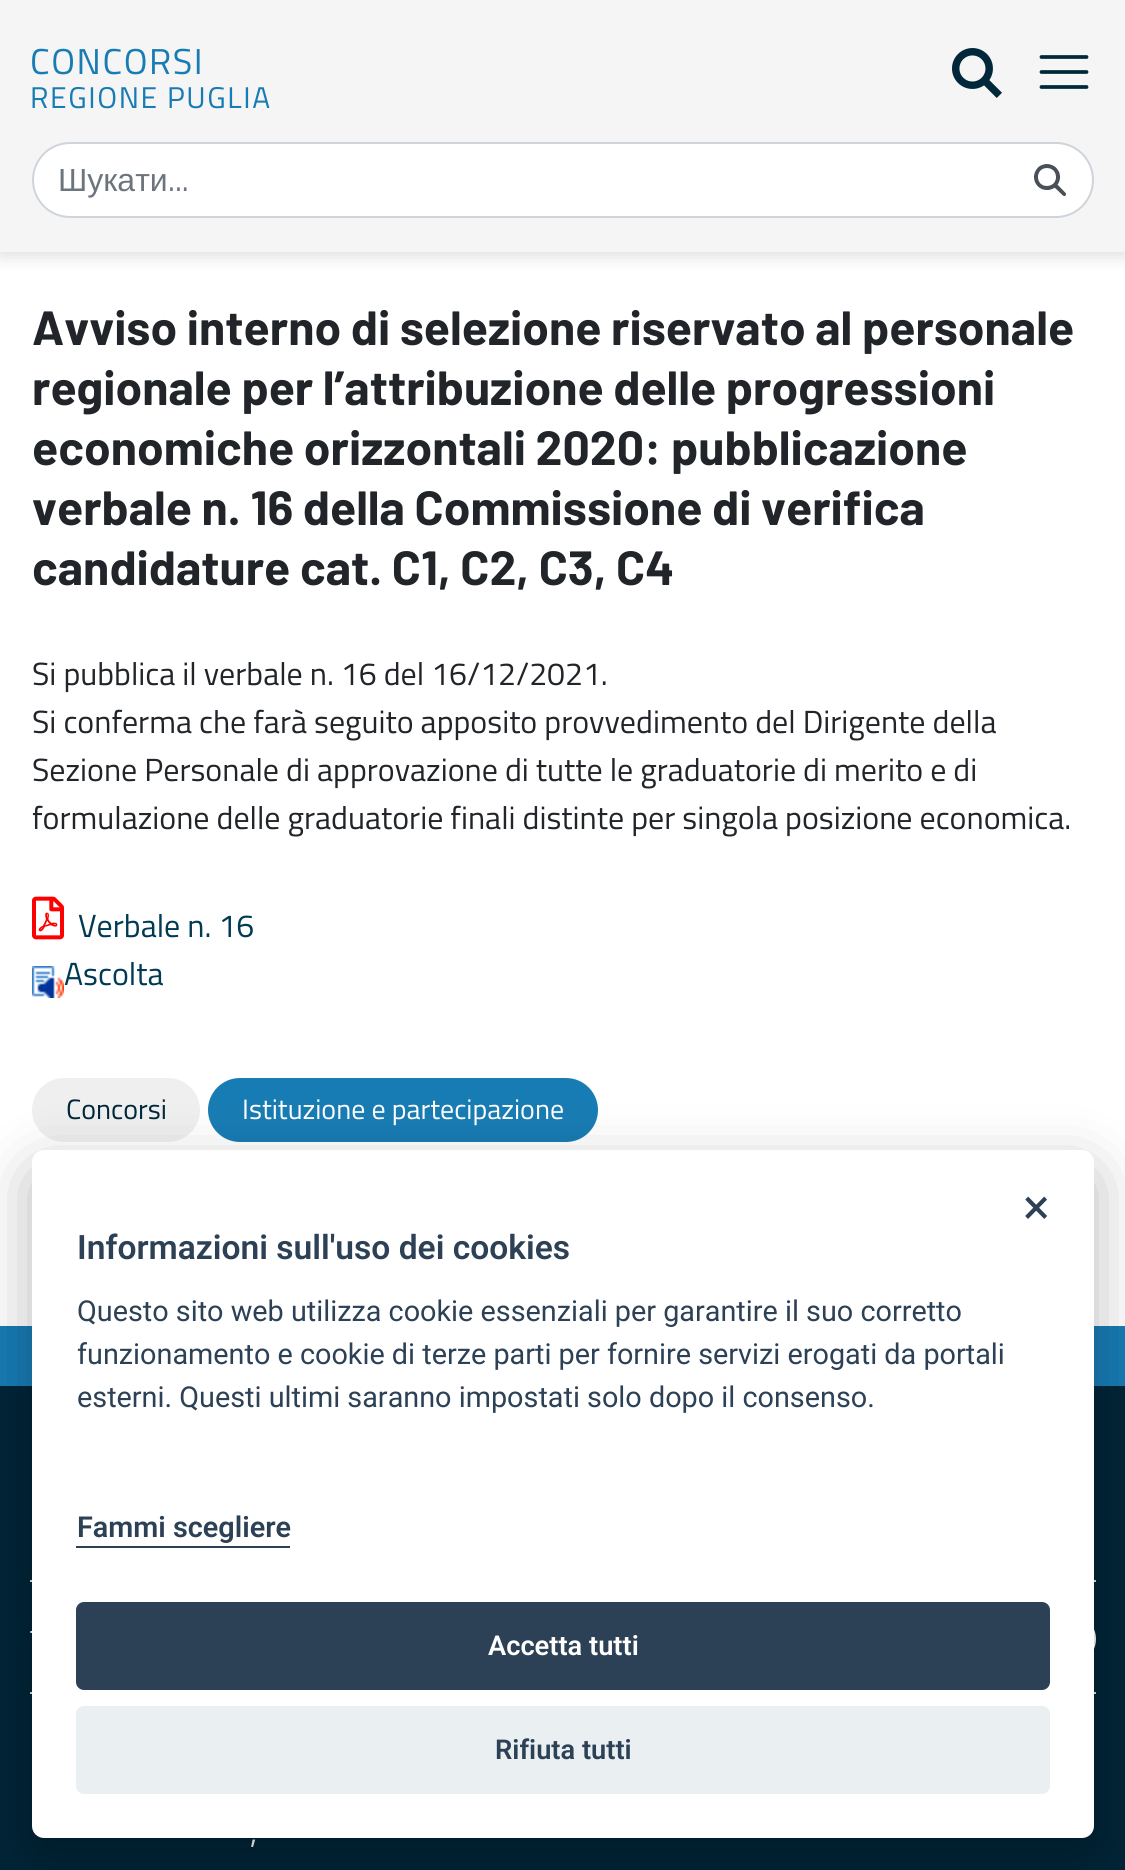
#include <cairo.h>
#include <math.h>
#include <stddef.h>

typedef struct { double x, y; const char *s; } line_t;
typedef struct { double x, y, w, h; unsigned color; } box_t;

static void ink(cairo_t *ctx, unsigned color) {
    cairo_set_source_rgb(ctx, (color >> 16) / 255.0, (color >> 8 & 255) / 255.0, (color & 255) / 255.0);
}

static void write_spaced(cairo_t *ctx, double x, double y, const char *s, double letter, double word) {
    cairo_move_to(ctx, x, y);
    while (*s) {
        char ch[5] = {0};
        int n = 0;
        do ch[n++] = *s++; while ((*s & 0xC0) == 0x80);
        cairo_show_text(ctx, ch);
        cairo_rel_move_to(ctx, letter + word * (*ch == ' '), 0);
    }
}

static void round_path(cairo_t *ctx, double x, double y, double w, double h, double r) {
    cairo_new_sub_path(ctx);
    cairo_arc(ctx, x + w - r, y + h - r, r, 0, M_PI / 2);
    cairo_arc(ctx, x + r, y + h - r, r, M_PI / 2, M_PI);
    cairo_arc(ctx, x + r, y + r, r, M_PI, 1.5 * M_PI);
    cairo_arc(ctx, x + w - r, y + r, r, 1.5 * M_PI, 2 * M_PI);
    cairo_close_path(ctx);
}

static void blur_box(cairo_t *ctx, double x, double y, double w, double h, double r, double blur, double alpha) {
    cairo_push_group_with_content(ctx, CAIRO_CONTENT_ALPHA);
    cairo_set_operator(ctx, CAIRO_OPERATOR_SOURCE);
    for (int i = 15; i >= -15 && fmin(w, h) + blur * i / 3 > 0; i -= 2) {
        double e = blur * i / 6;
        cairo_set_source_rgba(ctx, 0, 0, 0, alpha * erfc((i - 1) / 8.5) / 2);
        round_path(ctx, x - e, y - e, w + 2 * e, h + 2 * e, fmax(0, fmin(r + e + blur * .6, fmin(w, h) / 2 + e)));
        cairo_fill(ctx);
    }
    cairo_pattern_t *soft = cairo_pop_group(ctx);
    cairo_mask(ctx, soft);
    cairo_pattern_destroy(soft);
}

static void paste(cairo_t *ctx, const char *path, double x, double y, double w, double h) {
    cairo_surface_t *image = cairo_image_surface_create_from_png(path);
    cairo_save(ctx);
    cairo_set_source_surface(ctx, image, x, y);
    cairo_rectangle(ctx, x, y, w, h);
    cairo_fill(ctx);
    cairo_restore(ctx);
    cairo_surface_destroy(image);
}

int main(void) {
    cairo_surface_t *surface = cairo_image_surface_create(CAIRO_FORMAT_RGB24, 1125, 1870);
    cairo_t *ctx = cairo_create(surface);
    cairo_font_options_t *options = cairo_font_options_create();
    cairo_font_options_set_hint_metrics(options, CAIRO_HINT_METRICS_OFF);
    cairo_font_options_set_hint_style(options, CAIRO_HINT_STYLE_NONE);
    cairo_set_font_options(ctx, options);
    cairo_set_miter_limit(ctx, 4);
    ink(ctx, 0xFFFFFF);
    cairo_paint(ctx);
    ink(ctx, 0x000000);
    blur_box(ctx, 0, 2, 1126, 252, 0, 10, 0.16);
    ink(ctx, 0xF5F5F5);
    cairo_rectangle(ctx, 0, 0, 1125, 252);
    cairo_fill(ctx);
    cairo_select_font_face(ctx, "Titillium Web", CAIRO_FONT_SLANT_NORMAL, CAIRO_FONT_WEIGHT_NORMAL);
    cairo_set_font_size(ctx, 36);
    ink(ctx, 0x187CB4);
    write_spaced(ctx, 30, 74, "CONCORSI", 1.6, 0);
    cairo_set_font_size(ctx, 30);
    write_spaced(ctx, 30, 108, "REGIONE PUGLIA", 1.6, 0);
    paste(ctx, "media/1.png", 952, 48, 50, 50);
    cairo_new_path(ctx);
    cairo_move_to(ctx, 1041.5, 57);
    cairo_line_to(ctx, 1086.5, 57);
    cairo_move_to(ctx, 1041.5, 72);
    cairo_line_to(ctx, 1086.5, 72);
    cairo_move_to(ctx, 1041.5, 87);
    cairo_line_to(ctx, 1086.5, 87);
    ink(ctx, 0x01283A);
    cairo_set_line_width(ctx, 3.8);
    cairo_set_line_cap(ctx, CAIRO_LINE_CAP_ROUND);
    cairo_stroke(ctx);
    ink(ctx, 0xFFFFFF);
    cairo_new_path(ctx);
    cairo_move_to(ctx, 70, 144);
    cairo_line_to(ctx, 1008, 144);
    cairo_line_to(ctx, 1008, 216);
    cairo_line_to(ctx, 70, 216);
    cairo_curve_to(ctx, 50, 216, 34, 200, 34, 180);
    cairo_curve_to(ctx, 34, 160, 50, 144, 70, 144);
    cairo_close_path(ctx);
    cairo_fill(ctx);
    ink(ctx, 0xCED4DA);
    cairo_set_fill_rule(ctx, CAIRO_FILL_RULE_EVEN_ODD);
    cairo_new_path(ctx);
    cairo_move_to(ctx, 70, 142);
    cairo_line_to(ctx, 1008, 142);
    cairo_line_to(ctx, 1008, 218);
    cairo_line_to(ctx, 70, 218);
    cairo_curve_to(ctx, 49, 218, 32, 201, 32, 180);
    cairo_curve_to(ctx, 32, 159, 49, 142, 70, 142);
    cairo_close_path(ctx);
    cairo_move_to(ctx, 70, 144);
    cairo_line_to(ctx, 1008, 144);
    cairo_line_to(ctx, 1008, 216);
    cairo_line_to(ctx, 70, 216);
    cairo_curve_to(ctx, 50, 216, 34, 200, 34, 180);
    cairo_curve_to(ctx, 34, 160, 50, 144, 70, 144);
    cairo_close_path(ctx);
    cairo_fill(ctx);
    cairo_select_font_face(ctx, "Liberation Sans", CAIRO_FONT_SLANT_NORMAL, CAIRO_FONT_WEIGHT_NORMAL);
    cairo_set_font_size(ctx, 32);
    ink(ctx, 0x6C757D);
    cairo_move_to(ctx, 58, 191);
    cairo_show_text(ctx, "Шукати");
    cairo_select_font_face(ctx, "Titillium Web", CAIRO_FONT_SLANT_NORMAL, CAIRO_FONT_WEIGHT_NORMAL);
    cairo_move_to(ctx, 168, 191);
    cairo_show_text(ctx, "...");
    ink(ctx, 0xFFFFFF);
    cairo_new_path(ctx);
    cairo_move_to(ctx, 1008, 144);
    cairo_line_to(ctx, 1056, 144);
    cairo_curve_to(ctx, 1076, 144, 1092, 160, 1092, 180);
    cairo_curve_to(ctx, 1092, 200, 1076, 216, 1056, 216);
    cairo_line_to(ctx, 1008, 216);
    cairo_close_path(ctx);
    cairo_fill(ctx);
    ink(ctx, 0xCED4DA);
    cairo_new_path(ctx);
    cairo_move_to(ctx, 1008, 142);
    cairo_line_to(ctx, 1056, 142);
    cairo_curve_to(ctx, 1077, 142, 1094, 159, 1094, 180);
    cairo_curve_to(ctx, 1094, 201, 1077, 218, 1056, 218);
    cairo_line_to(ctx, 1008, 218);
    cairo_close_path(ctx);
    cairo_move_to(ctx, 1008, 144);
    cairo_line_to(ctx, 1056, 144);
    cairo_curve_to(ctx, 1076, 144, 1092, 160, 1092, 180);
    cairo_curve_to(ctx, 1092, 200, 1076, 216, 1056, 216);
    cairo_line_to(ctx, 1008, 216);
    cairo_close_path(ctx);
    cairo_fill(ctx);
    paste(ctx, "media/2.png", 1034, 164, 32, 32);
    cairo_select_font_face(ctx, "Barlow", CAIRO_FONT_SLANT_NORMAL, CAIRO_FONT_WEIGHT_BOLD);
    cairo_set_font_size(ctx, 48);
    ink(ctx, 0x212529);
    {
        static const line_t items[] = {
            {32, 345, "Avviso interno di selezione riservato al personale"},
            {32, 405, "regionale per l’attribuzione delle progressioni"},
            {32, 465, "economiche orizzontali 2020: pubblicazione"},
            {32, 525, "verbale n. 16 della Commissione di verifica"},
            {32, 585, "candidature cat. C1, C2, C3, C4"},
        };
        for (size_t i = 0; i < sizeof items / sizeof *items; i++) {
            cairo_move_to(ctx, items[i].x, items[i].y);
            cairo_show_text(ctx, items[i].s);
        }
    }
    cairo_select_font_face(ctx, "Titillium Web", CAIRO_FONT_SLANT_NORMAL, CAIRO_FONT_WEIGHT_NORMAL);
    cairo_set_font_size(ctx, 32);
    {
        static const line_t items[] = {
            {32, 685, "Si pubblica il verbale n. 16 del 16/12/2021."},
            {32, 733, "Si conferma che farà seguito apposito provvedimento del Dirigente della"},
            {32, 781, "Sezione Personale di approvazione di tutte le graduatorie di merito e di"},
            {32, 829, "formulazione delle graduatorie finali distinte per singola posizione economica."},
        };
        for (size_t i = 0; i < sizeof items / sizeof *items; i++) {
            cairo_move_to(ctx, items[i].x, items[i].y);
            cairo_show_text(ctx, items[i].s);
        }
    }
    paste(ctx, "media/3.png", 32, 896, 32, 44);
    ink(ctx, 0x003A54);
    cairo_move_to(ctx, 78, 937);
    cairo_show_text(ctx, "Verbale n. 16");
    paste(ctx, "media/4.png", 32, 966, 32, 32);
    cairo_move_to(ctx, 64, 985);
    cairo_show_text(ctx, "Ascolta");
    ink(ctx, 0xEFEFEF);
    round_path(ctx, 32, 1078, 168, 64, 32);
    cairo_fill(ctx);
    cairo_set_font_size(ctx, 28);
    ink(ctx, 0x01283A);
    cairo_move_to(ctx, 66, 1119);
    cairo_show_text(ctx, "Concorsi");
    ink(ctx, 0x187CB4);
    round_path(ctx, 208, 1078, 390, 64, 32);
    cairo_fill(ctx);
    ink(ctx, 0xFFFFFF);
    cairo_move_to(ctx, 242, 1119);
    cairo_show_text(ctx, "Istituzione e partecipazione");
    {
        static const box_t items[] = {
            {0, 1326, 1125, 60, 0x187CB4},
            {0, 1386, 1125, 484, 0x002537},
            {30, 1580, 1066, 2, 0xE6E6E6},
        };
        for (size_t i = 0; i < sizeof items / sizeof *items; i++) {
            ink(ctx, items[i].color);
            cairo_rectangle(ctx, items[i].x, items[i].y, items[i].w, items[i].h);
            cairo_fill(ctx);
        }
    }
    paste(ctx, "media/5.png", 30, 1631, 2, 2);
    ink(ctx, 0xFFFFFF);
    cairo_arc(ctx, 1071, 1639, 25, 0, 2 * M_PI);
    cairo_fill(ctx);
    ink(ctx, 0xE6E6E6);
    cairo_rectangle(ctx, 30, 1692, 1066, 2);
    cairo_fill(ctx);
    cairo_set_font_size(ctx, 32);
    ink(ctx, 0xFFFFFF);
    cairo_move_to(ctx, 250, 1843);
    cairo_show_text(ctx, ",");
    ink(ctx, 0x020203);
    blur_box(ctx, 32, 1170, 1062, 688, 12, 30, 0.28);
    ink(ctx, 0xFFFFFF);
    round_path(ctx, 32, 1150, 1062, 688, 12);
    cairo_fill(ctx);
    cairo_select_font_face(ctx, "Roboto", CAIRO_FONT_SLANT_NORMAL, CAIRO_FONT_WEIGHT_NORMAL);
    cairo_set_font_size(ctx, 50);
    ink(ctx, 0x2D4156);
    cairo_move_to(ctx, 1023, 1224);
    cairo_show_text(ctx, "×");
    cairo_select_font_face(ctx, "Roboto SemiBold", CAIRO_FONT_SLANT_NORMAL, CAIRO_FONT_WEIGHT_NORMAL);
    cairo_set_font_size(ctx, 33.6);
    cairo_move_to(ctx, 77, 1259);
    cairo_show_text(ctx, "Informazioni sull'uso dei cookies");
    cairo_select_font_face(ctx, "Roboto", CAIRO_FONT_SLANT_NORMAL, CAIRO_FONT_WEIGHT_NORMAL);
    cairo_set_font_size(ctx, 28.8);
    {
        static const line_t items[] = {
            {77, 1321, "Questo sito web utilizza cookie essenziali per garantire il suo corretto"},
            {77, 1364, "funzionamento e cookie di terze parti per fornire servizi erogati da portali"},
            {77, 1407, "esterni. Questi ultimi saranno impostati solo dopo il consenso."},
        };
        for (size_t i = 0; i < sizeof items / sizeof *items; i++) {
            cairo_move_to(ctx, items[i].x, items[i].y);
            cairo_show_text(ctx, items[i].s);
        }
    }
    cairo_select_font_face(ctx, "Roboto SemiBold", CAIRO_FONT_SLANT_NORMAL, CAIRO_FONT_WEIGHT_NORMAL);
    cairo_move_to(ctx, 77, 1537);
    cairo_show_text(ctx, "Fammi scegliere");
    cairo_rectangle(ctx, 76, 1546, 214, 2);
    cairo_fill(ctx);
    round_path(ctx, 76, 1602, 974, 88, 8);
    cairo_fill(ctx);
    cairo_set_font_size(ctx, 27.25);
    ink(ctx, 0xFFFFFF);
    cairo_move_to(ctx, 488, 1655);
    cairo_show_text(ctx, "Accetta tutti");
    ink(ctx, 0xEAEFF2);
    round_path(ctx, 76, 1706, 974, 88, 8);
    cairo_fill(ctx);
    ink(ctx, 0x2D4156);
    cairo_move_to(ctx, 495, 1759);
    cairo_show_text(ctx, "Rifiuta tutti");
    cairo_surface_write_to_png(surface, "image.png");
    cairo_font_options_destroy(options);
    cairo_destroy(ctx);
    cairo_surface_destroy(surface);
    return 0;
}
